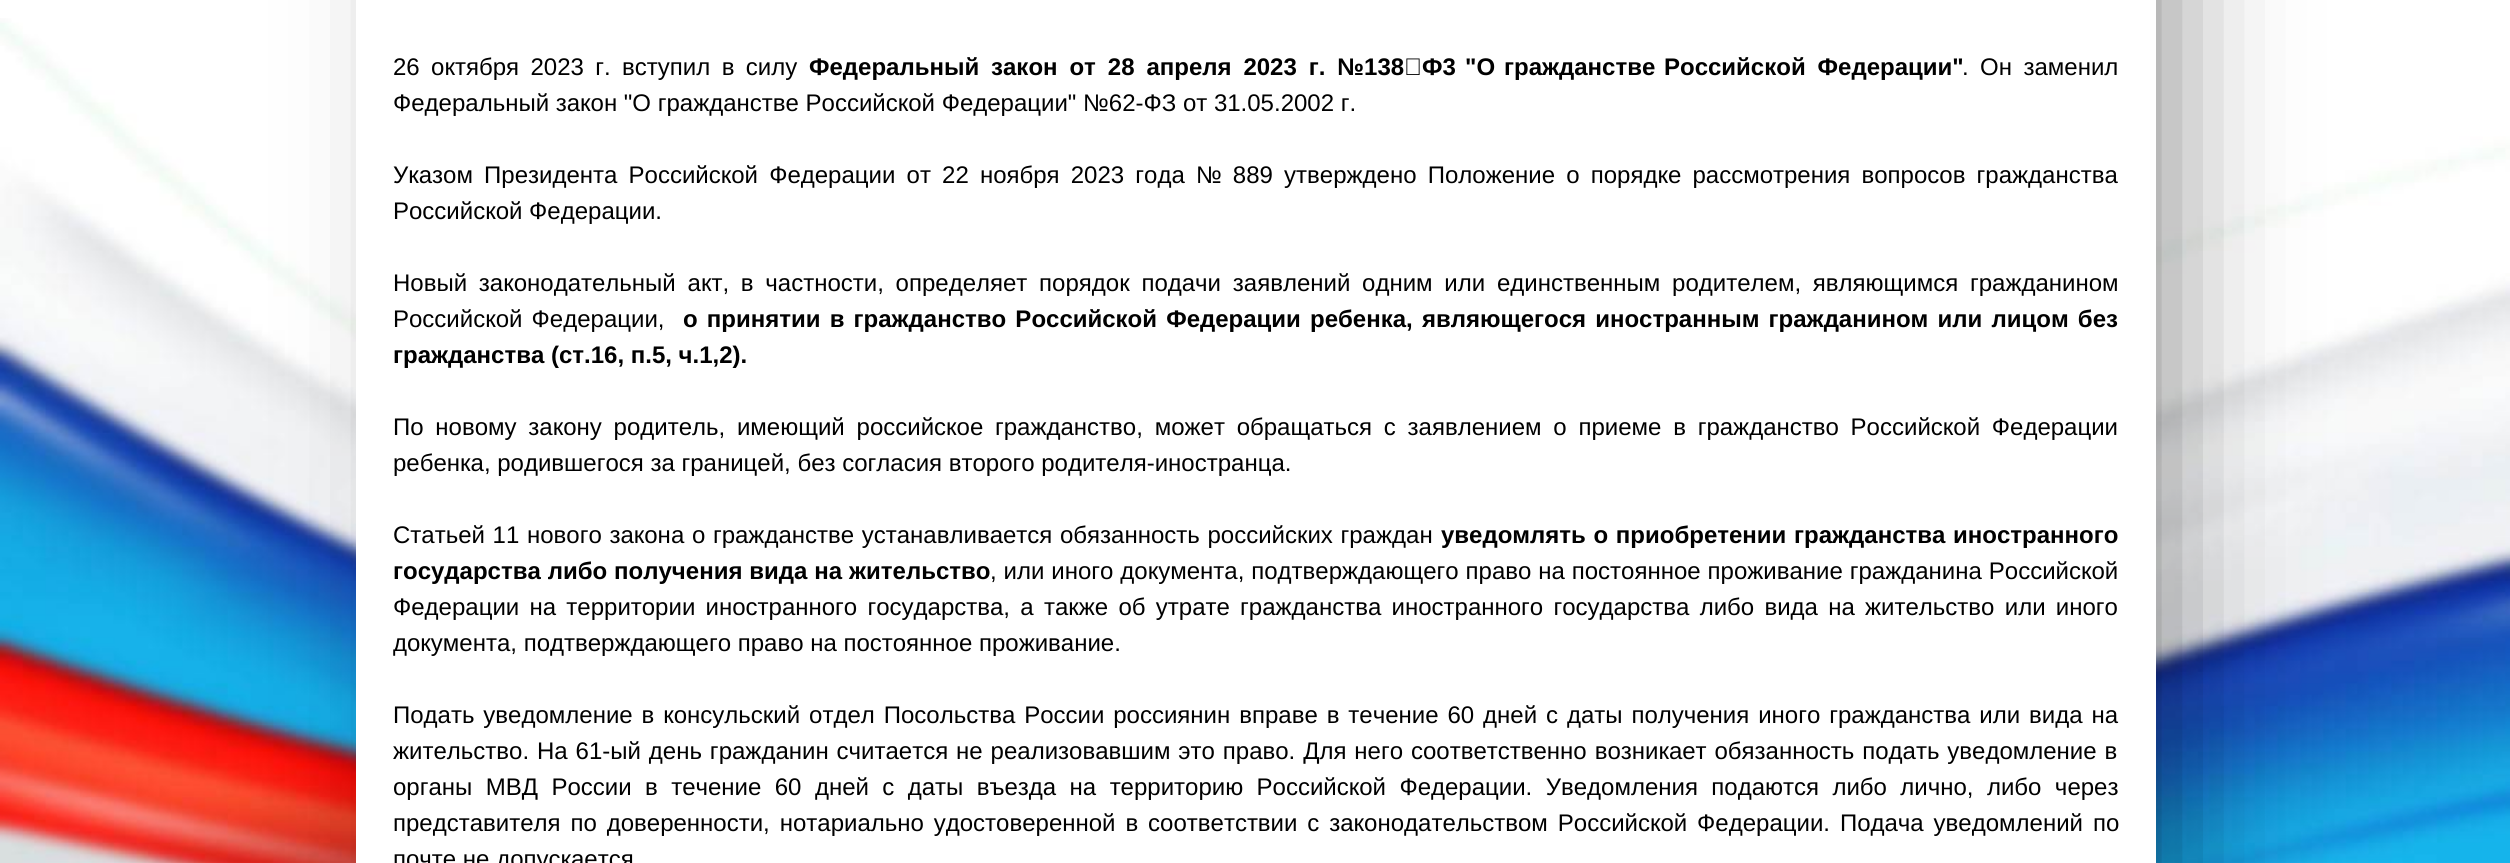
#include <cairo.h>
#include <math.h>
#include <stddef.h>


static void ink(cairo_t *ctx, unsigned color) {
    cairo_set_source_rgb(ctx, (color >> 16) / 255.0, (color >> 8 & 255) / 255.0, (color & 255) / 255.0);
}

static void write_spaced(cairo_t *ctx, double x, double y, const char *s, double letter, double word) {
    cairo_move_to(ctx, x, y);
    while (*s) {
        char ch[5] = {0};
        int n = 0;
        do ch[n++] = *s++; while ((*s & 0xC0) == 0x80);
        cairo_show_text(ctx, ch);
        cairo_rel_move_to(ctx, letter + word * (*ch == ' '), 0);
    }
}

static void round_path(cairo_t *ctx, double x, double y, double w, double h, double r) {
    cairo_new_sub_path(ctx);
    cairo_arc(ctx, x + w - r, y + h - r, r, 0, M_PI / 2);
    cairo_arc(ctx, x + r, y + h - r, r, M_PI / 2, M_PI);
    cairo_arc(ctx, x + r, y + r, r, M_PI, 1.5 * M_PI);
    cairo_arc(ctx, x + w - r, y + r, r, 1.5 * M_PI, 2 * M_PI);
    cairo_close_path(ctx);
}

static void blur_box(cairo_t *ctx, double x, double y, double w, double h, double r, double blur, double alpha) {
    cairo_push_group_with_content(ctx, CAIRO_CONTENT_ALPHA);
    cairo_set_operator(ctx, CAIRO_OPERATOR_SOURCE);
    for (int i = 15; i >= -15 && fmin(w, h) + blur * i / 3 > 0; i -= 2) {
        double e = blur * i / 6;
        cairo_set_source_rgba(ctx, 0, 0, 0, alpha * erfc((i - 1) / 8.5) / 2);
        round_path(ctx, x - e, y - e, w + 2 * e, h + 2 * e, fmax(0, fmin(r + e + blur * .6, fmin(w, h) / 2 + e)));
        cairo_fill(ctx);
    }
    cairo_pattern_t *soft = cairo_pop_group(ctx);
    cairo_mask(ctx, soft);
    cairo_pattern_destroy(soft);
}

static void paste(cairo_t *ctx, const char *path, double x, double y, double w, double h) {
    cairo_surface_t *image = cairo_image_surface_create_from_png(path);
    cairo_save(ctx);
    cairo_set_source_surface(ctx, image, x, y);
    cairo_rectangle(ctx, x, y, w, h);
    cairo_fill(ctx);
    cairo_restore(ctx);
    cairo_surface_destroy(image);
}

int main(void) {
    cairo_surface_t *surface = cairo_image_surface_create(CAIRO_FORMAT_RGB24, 2510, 863);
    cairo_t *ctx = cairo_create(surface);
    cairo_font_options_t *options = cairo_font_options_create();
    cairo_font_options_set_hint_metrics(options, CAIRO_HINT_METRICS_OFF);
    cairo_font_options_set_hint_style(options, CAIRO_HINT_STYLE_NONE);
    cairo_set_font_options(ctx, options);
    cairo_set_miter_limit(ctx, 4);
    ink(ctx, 0xFFFFFF);
    cairo_paint(ctx);
    paste(ctx, "media/1.png", 0, 18, 2510, 845);
    ink(ctx, 0x000000);
    blur_box(ctx, 423, -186, 1749, 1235, 0, 62, 0.44);
    ink(ctx, 0xFFFFFF);
    cairo_rectangle(ctx, 356, 0, 1800, 863);
    cairo_fill(ctx);
    cairo_select_font_face(ctx, "Liberation Sans", CAIRO_FONT_SLANT_NORMAL, CAIRO_FONT_WEIGHT_NORMAL);
    cairo_set_font_size(ctx, 24);
    ink(ctx, 0x000000);
    write_spaced(ctx, 393, 75, "26 октября 2023 г. вступил в силу", 0, 4.75);
    cairo_select_font_face(ctx, "Liberation Sans", CAIRO_FONT_SLANT_NORMAL, CAIRO_FONT_WEIGHT_BOLD);
    write_spaced(ctx, 809, 75, "Федеральный закон от 28 апреля 2023 г. №138‑Ф3", 0, 5.25);
    write_spaced(ctx, 1465, 75, "\"О", 0, 5.25);
    write_spaced(ctx, 1504, 75, "гражданстве", 0, 5.25);
    write_spaced(ctx, 1664, 75, "Российской Федерации\"", 0, 5.25);
    cairo_select_font_face(ctx, "Liberation Sans", CAIRO_FONT_SLANT_NORMAL, CAIRO_FONT_WEIGHT_NORMAL);
    write_spaced(ctx, 1962, 75, ". Он заменил", 0, 4.75);
    cairo_move_to(ctx, 393, 111);
    cairo_show_text(ctx, "Федеральный закон \"О гражданстве Российской Федерации\" №62-ФЗ от 31.05.2002 г.");
    write_spaced(ctx, 393, 183, "Указом Президента Российской Федерации от 22 ноября 2023 года № 889 утверждено Положение о порядке рассмотрения вопросов гражданства", 0, 4.5);
    cairo_move_to(ctx, 393, 219);
    cairo_show_text(ctx, "Российской Федерации.");
    write_spaced(ctx, 393, 291, "Новый законодательный акт, в частности, определяет порядок подачи заявлений одним или единственным родителем, являющимся гражданином", 0, 5.1);
    write_spaced(ctx, 393, 327, "Российской Федерации,", 0, 2.5);
    cairo_select_font_face(ctx, "Liberation Sans", CAIRO_FONT_SLANT_NORMAL, CAIRO_FONT_WEIGHT_BOLD);
    write_spaced(ctx, 683, 327, "о принятии в гражданство Российской Федерации ребенка, являющегося иностранным гражданином или лицом без", 0, 2.5);
    cairo_move_to(ctx, 393, 363);
    cairo_show_text(ctx, "гражданства (ст.16, п.5, ч.1,2).");
    cairo_select_font_face(ctx, "Liberation Sans", CAIRO_FONT_SLANT_NORMAL, CAIRO_FONT_WEIGHT_NORMAL);
    write_spaced(ctx, 393, 435, "По новому закону родитель, имеющий российское гражданство, может обращаться с заявлением о приеме в гражданство Российской Федерации", 0, 5.1);
    cairo_move_to(ctx, 393, 471);
    cairo_show_text(ctx, "ребенка, родившегося за границей, без согласия второго родителя-иностранца.");
    write_spaced(ctx, 393, 543, "Статьей 11 нового закона о гражданстве устанавливается обязанность российских граждан", 0, 1);
    cairo_select_font_face(ctx, "Liberation Sans", CAIRO_FONT_SLANT_NORMAL, CAIRO_FONT_WEIGHT_BOLD);
    write_spaced(ctx, 1441, 543, "уведомлять о приобретении гражданства иностранного", 0, 1);
    write_spaced(ctx, 393, 579, "государства либо получения вида на жительство", 0, 0.25);
    cairo_select_font_face(ctx, "Liberation Sans", CAIRO_FONT_SLANT_NORMAL, CAIRO_FONT_WEIGHT_NORMAL);
    write_spaced(ctx, 990, 579, ", или иного документа, подтверждающего право на постоянное проживание гражданина Российской", 0, 0.25);
    write_spaced(ctx, 393, 615, "Федерации на территории иностранного государства, а также об утрате гражданства иностранного государства либо вида на жительство или иного", 0, 3.6);
    cairo_move_to(ctx, 393, 651);
    cairo_show_text(ctx, "документа, подтверждающего право на постоянное проживание.");
    write_spaced(ctx, 393, 723, "Подать уведомление в консульский отдел Посольства России россиянин вправе в течение 60 дней с даты получения иного гражданства или вида на", 0, 2.25);
    write_spaced(ctx, 393, 759, "жительство. На 61-ый день гражданин считается не реализовавшим это право. Для него соответственно возникает обязанность подать уведомление в", 0, 1.25);
    write_spaced(ctx, 393, 795, "органы МВД России в течение 60 дней с даты въезда на территорию Российской Федерации. Уведомления подаются либо лично, либо через", 0, 6.75);
    write_spaced(ctx, 393, 831, "представителя по доверенности, нотариально удостоверенной в соответствии с законодательством Российской Федерации. Подача уведомлений по", 0, 3.25);
    cairo_move_to(ctx, 393, 867);
    cairo_show_text(ctx, "почте не допускается");
    cairo_surface_write_to_png(surface, "image.png");
    cairo_font_options_destroy(options);
    cairo_destroy(ctx);
    cairo_surface_destroy(surface);
    return 0;
}
